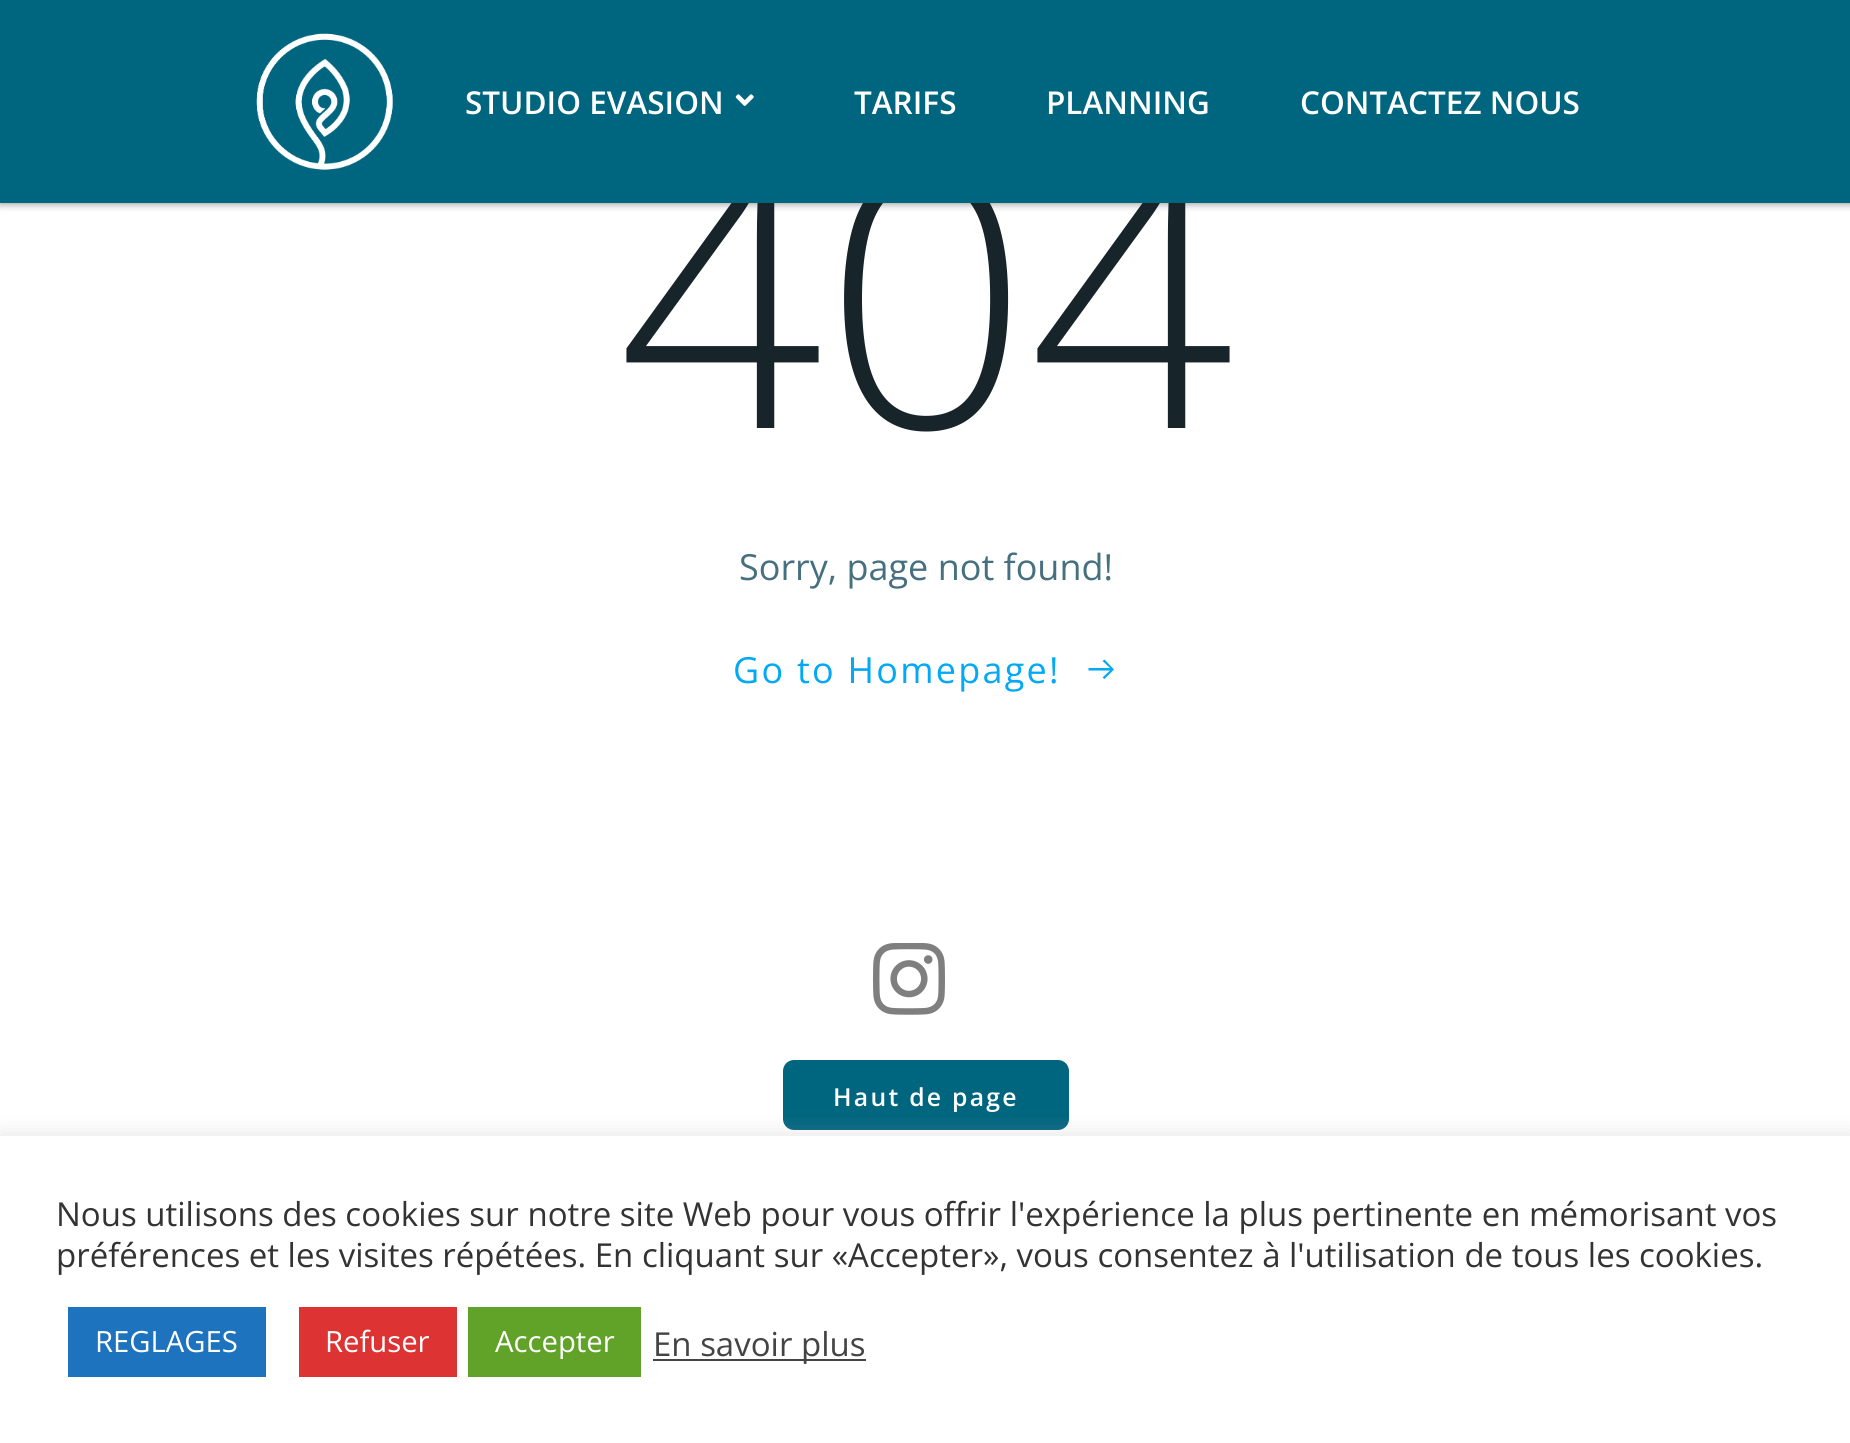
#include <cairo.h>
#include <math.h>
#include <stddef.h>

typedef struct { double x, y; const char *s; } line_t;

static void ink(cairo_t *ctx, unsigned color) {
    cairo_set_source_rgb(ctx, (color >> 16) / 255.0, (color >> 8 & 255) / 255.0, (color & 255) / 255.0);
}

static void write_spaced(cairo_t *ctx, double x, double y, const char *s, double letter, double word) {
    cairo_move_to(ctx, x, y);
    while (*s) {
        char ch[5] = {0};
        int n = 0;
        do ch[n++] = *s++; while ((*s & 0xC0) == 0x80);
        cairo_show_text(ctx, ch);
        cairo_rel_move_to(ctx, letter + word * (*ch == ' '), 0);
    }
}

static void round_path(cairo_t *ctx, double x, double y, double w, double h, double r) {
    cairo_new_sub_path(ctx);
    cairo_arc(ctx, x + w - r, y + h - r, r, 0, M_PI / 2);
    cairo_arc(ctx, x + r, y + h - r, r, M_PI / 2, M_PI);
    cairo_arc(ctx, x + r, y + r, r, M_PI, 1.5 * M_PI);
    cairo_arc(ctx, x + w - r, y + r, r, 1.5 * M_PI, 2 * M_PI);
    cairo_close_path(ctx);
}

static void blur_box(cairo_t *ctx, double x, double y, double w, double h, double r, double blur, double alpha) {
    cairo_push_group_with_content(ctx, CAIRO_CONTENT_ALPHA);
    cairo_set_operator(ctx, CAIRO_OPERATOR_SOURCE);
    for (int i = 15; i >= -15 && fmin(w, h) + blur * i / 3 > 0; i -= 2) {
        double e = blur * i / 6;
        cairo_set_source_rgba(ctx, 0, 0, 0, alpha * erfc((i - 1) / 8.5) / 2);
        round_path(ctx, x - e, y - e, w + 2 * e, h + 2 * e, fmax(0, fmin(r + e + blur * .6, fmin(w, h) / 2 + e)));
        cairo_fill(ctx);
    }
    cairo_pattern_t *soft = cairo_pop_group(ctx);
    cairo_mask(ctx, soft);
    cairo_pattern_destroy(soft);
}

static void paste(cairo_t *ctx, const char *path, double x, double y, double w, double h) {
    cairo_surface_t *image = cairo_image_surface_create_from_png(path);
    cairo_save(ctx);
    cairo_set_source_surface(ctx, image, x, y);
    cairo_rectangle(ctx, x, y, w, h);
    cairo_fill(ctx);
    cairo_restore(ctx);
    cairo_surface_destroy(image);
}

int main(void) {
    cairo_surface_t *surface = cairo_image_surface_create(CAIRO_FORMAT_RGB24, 1850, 1443);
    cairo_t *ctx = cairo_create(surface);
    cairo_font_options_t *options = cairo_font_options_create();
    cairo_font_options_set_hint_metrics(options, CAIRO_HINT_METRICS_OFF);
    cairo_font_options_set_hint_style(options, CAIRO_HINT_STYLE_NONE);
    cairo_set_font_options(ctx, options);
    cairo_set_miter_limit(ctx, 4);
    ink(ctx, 0xFFFFFF);
    cairo_paint(ctx);
    ink(ctx, 0x000000);
    blur_box(ctx, 0, 0, 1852, 203, 0, 4.5, 0.5);
    cairo_select_font_face(ctx, "Open Sans Light", CAIRO_FONT_SLANT_NORMAL, CAIRO_FONT_WEIGHT_NORMAL);
    cairo_set_font_size(ctx, 360);
    ink(ctx, 0x17252A);
    cairo_move_to(ctx, 618, 428);
    cairo_show_text(ctx, "404");
    ink(ctx, 0x00657E);
    cairo_rectangle(ctx, 0, 0, 1850, 203);
    cairo_fill(ctx);
    paste(ctx, "media/1.png", 256, 33, 137, 137);
    cairo_select_font_face(ctx, "Open Sans SemiBold", CAIRO_FONT_SLANT_NORMAL, CAIRO_FONT_WEIGHT_NORMAL);
    cairo_set_font_size(ctx, 31.5);
    ink(ctx, 0xFFFFFF);
    cairo_move_to(ctx, 465, 114);
    cairo_show_text(ctx, "STUDIO EVASION");
    paste(ctx, "media/2.png", 735, 94, 19, 12);
    {
        static const line_t items[] = {
            {854, 114, "TARIFS"},
            {1046, 114, "PLANNING"},
            {1300, 114, "CONTACTEZ NOUS"},
        };
        for (size_t i = 0; i < sizeof items / sizeof *items; i++) {
            cairo_move_to(ctx, items[i].x, items[i].y);
            cairo_show_text(ctx, items[i].s);
        }
    }
    cairo_select_font_face(ctx, "Open Sans", CAIRO_FONT_SLANT_NORMAL, CAIRO_FONT_WEIGHT_NORMAL);
    cairo_set_font_size(ctx, 36);
    ink(ctx, 0x46707F);
    cairo_move_to(ctx, 739, 580);
    cairo_show_text(ctx, "Sorry, page not found!");
    ink(ctx, 0x03A9F4);
    write_spaced(ctx, 733, 683, "Go to Homepage!", 2.25, 0);
    cairo_new_path(ctx);
    cairo_move_to(ctx, 1104.5, 659.5);
    cairo_line_to(ctx, 1114, 669.5);
    cairo_line_to(ctx, 1104.5, 679);
    cairo_line_to(ctx, 1102.5, 677.5);
    cairo_line_to(ctx, 1110, 670.5);
    cairo_line_to(ctx, 1088.5, 670.5);
    cairo_line_to(ctx, 1088.5, 668);
    cairo_line_to(ctx, 1110, 668);
    cairo_line_to(ctx, 1102.5, 661);
    cairo_close_path(ctx);
    cairo_fill(ctx);
    paste(ctx, "media/3.png", 873, 943, 72, 72);
    ink(ctx, 0x00657E);
    round_path(ctx, 785.5, 1062.5, 281, 65, 8.5);
    cairo_fill_preserve(ctx);
    cairo_set_line_width(ctx, 5);
    cairo_stroke(ctx);
    cairo_select_font_face(ctx, "Open Sans SemiBold", CAIRO_FONT_SLANT_NORMAL, CAIRO_FONT_WEIGHT_NORMAL);
    cairo_set_font_size(ctx, 24.75);
    ink(ctx, 0xFFFFFF);
    write_spaced(ctx, 833, 1106, "Haut de page", 2.25, 0);
    ink(ctx, 0xACABAB);
    blur_box(ctx, 0, 1134, 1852, 308, 0, 11, 0.3);
    ink(ctx, 0xFFFFFF);
    cairo_rectangle(ctx, 0, 1136, 1850, 307);
    cairo_fill(ctx);
    cairo_select_font_face(ctx, "Open Sans", CAIRO_FONT_SLANT_NORMAL, CAIRO_FONT_WEIGHT_NORMAL);
    cairo_set_font_size(ctx, 33);
    ink(ctx, 0x333333);
    cairo_move_to(ctx, 56, 1226);
    cairo_show_text(ctx, "Nous utilisons des cookies sur notre site Web pour vous offrir l'expérience la plus pertinente en mémorisant vos");
    cairo_move_to(ctx, 56, 1267);
    cairo_show_text(ctx, "préférences et les visites répétées. En cliquant sur «Accepter», vous consentez à l'utilisation de tous les cookies.");
    ink(ctx, 0x1E73BE);
    cairo_rectangle(ctx, 68, 1307, 198, 70);
    cairo_fill(ctx);
    cairo_set_font_size(ctx, 29.25);
    ink(ctx, 0xFFFFFF);
    cairo_move_to(ctx, 95, 1352);
    cairo_show_text(ctx, "REGLAGES");
    ink(ctx, 0xDD3333);
    cairo_rectangle(ctx, 299, 1307, 158, 70);
    cairo_fill(ctx);
    ink(ctx, 0xFFFFFF);
    cairo_move_to(ctx, 325, 1352);
    cairo_show_text(ctx, "Refuser");
    ink(ctx, 0x61A229);
    cairo_rectangle(ctx, 468, 1307, 173, 70);
    cairo_fill(ctx);
    ink(ctx, 0xFFFFFF);
    cairo_move_to(ctx, 495, 1352);
    cairo_show_text(ctx, "Accepter");
    ink(ctx, 0x444444);
    cairo_rectangle(ctx, 653, 1359, 213, 2);
    cairo_fill(ctx);
    cairo_set_font_size(ctx, 33);
    cairo_move_to(ctx, 653, 1356);
    cairo_show_text(ctx, "En savoir plus");
    cairo_surface_write_to_png(surface, "image.png");
    cairo_font_options_destroy(options);
    cairo_destroy(ctx);
    cairo_surface_destroy(surface);
    return 0;
}
